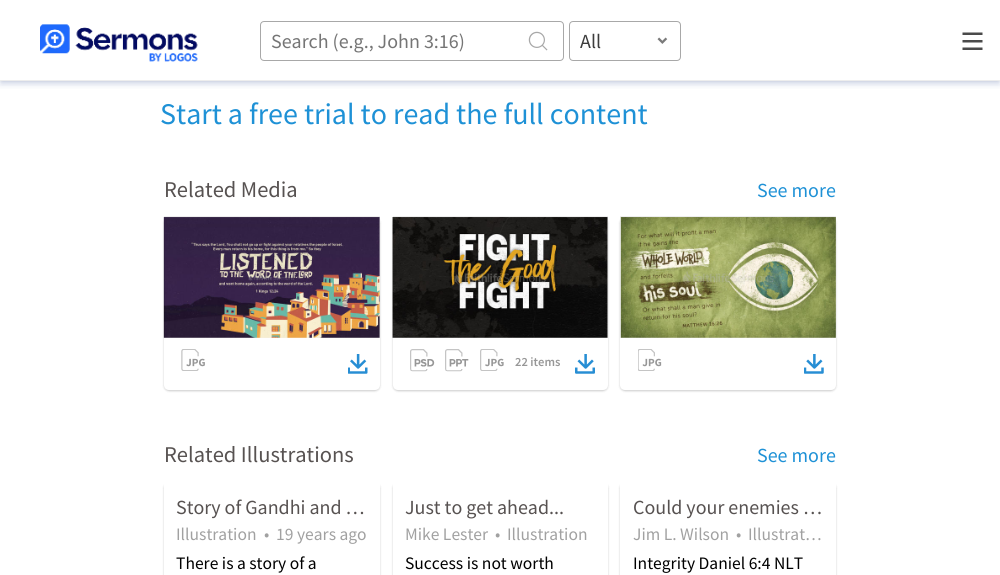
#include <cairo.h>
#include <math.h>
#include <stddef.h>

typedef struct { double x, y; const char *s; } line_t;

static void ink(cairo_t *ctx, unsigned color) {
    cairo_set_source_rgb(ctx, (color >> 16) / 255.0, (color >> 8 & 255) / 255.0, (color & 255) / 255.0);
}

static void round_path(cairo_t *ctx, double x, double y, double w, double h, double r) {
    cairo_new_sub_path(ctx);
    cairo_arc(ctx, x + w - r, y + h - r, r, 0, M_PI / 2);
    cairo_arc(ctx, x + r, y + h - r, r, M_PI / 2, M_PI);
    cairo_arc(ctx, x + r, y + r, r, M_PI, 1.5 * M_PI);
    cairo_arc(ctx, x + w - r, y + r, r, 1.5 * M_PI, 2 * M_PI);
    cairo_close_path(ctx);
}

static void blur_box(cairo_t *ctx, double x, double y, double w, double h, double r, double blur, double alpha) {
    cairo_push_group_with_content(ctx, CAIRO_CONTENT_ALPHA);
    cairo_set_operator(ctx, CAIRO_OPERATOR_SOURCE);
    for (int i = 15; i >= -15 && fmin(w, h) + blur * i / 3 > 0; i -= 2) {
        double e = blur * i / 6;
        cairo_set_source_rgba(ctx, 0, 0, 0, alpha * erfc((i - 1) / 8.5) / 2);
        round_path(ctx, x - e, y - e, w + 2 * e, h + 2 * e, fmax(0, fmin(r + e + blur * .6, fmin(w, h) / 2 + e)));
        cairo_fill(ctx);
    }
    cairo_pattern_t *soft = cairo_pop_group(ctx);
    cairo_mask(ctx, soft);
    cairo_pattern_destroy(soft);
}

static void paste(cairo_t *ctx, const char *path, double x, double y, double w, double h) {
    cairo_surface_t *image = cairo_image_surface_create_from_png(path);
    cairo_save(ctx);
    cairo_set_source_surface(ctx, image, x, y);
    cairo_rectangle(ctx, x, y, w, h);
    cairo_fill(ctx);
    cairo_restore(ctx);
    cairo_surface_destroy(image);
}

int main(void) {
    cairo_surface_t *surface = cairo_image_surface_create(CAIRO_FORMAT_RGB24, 1000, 575);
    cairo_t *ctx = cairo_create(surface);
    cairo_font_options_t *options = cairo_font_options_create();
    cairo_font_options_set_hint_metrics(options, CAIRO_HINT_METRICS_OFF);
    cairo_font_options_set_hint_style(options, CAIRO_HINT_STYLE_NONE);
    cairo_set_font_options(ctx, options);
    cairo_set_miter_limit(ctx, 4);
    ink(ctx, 0xFFFFFF);
    cairo_paint(ctx);
    ink(ctx, 0x000000);
    blur_box(ctx, 0, 1, 1000, 80, 0, 1, 0.1);
    ink(ctx, 0xFFFFFF);
    cairo_rectangle(ctx, 0, 0, 1000, 80);
    cairo_fill(ctx);
    cairo_save(ctx);
    cairo_rectangle(ctx, 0, 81, 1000, 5);
    cairo_clip(ctx);
    ink(ctx, 0x6E83B7);
    blur_box(ctx, 1, 4, 998, 79, 0, 2.5, 0.2);
    cairo_restore(ctx);
    cairo_save(ctx);
    cairo_rectangle(ctx, 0, 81, 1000, 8);
    cairo_clip(ctx);
    ink(ctx, 0x6E83B7);
    blur_box(ctx, 0, 5, 1000, 81, 0, 3, 0.14);
    cairo_restore(ctx);
    paste(ctx, "media/1.png", 40, 24, 158, 38);
    round_path(ctx, 260.5, 21.5, 303, 39, 3.5);
    ink(ctx, 0xA8A8A8);
    cairo_set_line_width(ctx, 1);
    cairo_stroke(ctx);
    cairo_select_font_face(ctx, "Source Sans Pro", CAIRO_FONT_SLANT_NORMAL, CAIRO_FONT_WEIGHT_NORMAL);
    cairo_set_font_size(ctx, 20);
    ink(ctx, 0x757575);
    cairo_move_to(ctx, 271, 48);
    cairo_show_text(ctx, "Search (e.g., John 3:16)");
    paste(ctx, "media/2.png", 528, 31, 20, 20);
    round_path(ctx, 569.5, 21.5, 111, 39, 3.5);
    ink(ctx, 0xA8A8A8);
    cairo_stroke(ctx);
    ink(ctx, 0x3D3D3D);
    cairo_move_to(ctx, 580, 48);
    cairo_show_text(ctx, "All");
    paste(ctx, "media/3.png", 657, 37, 11, 7);
    paste(ctx, "media/4.png", 962, 32, 21, 18);
    cairo_set_font_size(ctx, 30);
    ink(ctx, 0x1E91D6);
    cairo_move_to(ctx, 160, 124);
    cairo_show_text(ctx, "Start a free trial to read the full content");
    cairo_set_font_size(ctx, 22.5);
    ink(ctx, 0x575251);
    cairo_move_to(ctx, 164, 197);
    cairo_show_text(ctx, "Related Media");
    cairo_set_font_size(ctx, 20);
    ink(ctx, 0x1E91D6);
    cairo_move_to(ctx, 757, 197);
    cairo_show_text(ctx, "See more");
    ink(ctx, 0x000000);
    blur_box(ctx, 164, 218, 216, 173, 5, 1, 0.2);
    ink(ctx, 0xFFFFFF);
    cairo_new_path(ctx);
    cairo_move_to(ctx, 164, 216);
    cairo_line_to(ctx, 380, 216);
    cairo_line_to(ctx, 380, 385);
    cairo_curve_to(ctx, 380, 388, 378, 390, 375, 390);
    cairo_line_to(ctx, 169, 390);
    cairo_curve_to(ctx, 166, 390, 164, 388, 164, 385);
    cairo_close_path(ctx);
    cairo_fill(ctx);
    ink(ctx, 0xEEEEEE);
    cairo_rectangle(ctx, 164, 216, 216, 122);
    cairo_fill(ctx);
    paste(ctx, "media/5.png", 163, 217, 217, 121);
    paste(ctx, "media/6.png", 181, 349, 24, 22);
    paste(ctx, "media/7.png", 348, 354, 20, 20);
    ink(ctx, 0x000000);
    blur_box(ctx, 393, 218, 215, 173, 5, 1, 0.2);
    ink(ctx, 0xFFFFFF);
    cairo_new_path(ctx);
    cairo_move_to(ctx, 393, 216);
    cairo_line_to(ctx, 608, 216);
    cairo_line_to(ctx, 608, 385);
    cairo_curve_to(ctx, 608, 388, 606, 390, 603, 390);
    cairo_line_to(ctx, 398, 390);
    cairo_curve_to(ctx, 395, 390, 393, 388, 393, 385);
    cairo_close_path(ctx);
    cairo_fill(ctx);
    ink(ctx, 0xEEEEEE);
    cairo_rectangle(ctx, 393, 216, 215, 122);
    cairo_fill(ctx);
    paste(ctx, "media/8.png", 392, 217, 216, 121);
    paste(ctx, "media/9.png", 410, 349, 25, 23);
    paste(ctx, "media/10.png", 445, 349, 24, 23);
    paste(ctx, "media/11.png", 480, 349, 24, 22);
    cairo_select_font_face(ctx, "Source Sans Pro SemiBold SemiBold", CAIRO_FONT_SLANT_NORMAL, CAIRO_FONT_WEIGHT_NORMAL);
    cairo_set_font_size(ctx, 12.5);
    ink(ctx, 0x979797);
    cairo_move_to(ctx, 515, 366);
    cairo_show_text(ctx, "22 items");
    paste(ctx, "media/12.png", 575, 354, 20, 20);
    ink(ctx, 0x000000);
    blur_box(ctx, 620, 218, 216, 173, 5, 1, 0.2);
    ink(ctx, 0xFFFFFF);
    cairo_new_path(ctx);
    cairo_move_to(ctx, 620, 216);
    cairo_line_to(ctx, 836, 216);
    cairo_line_to(ctx, 836, 385);
    cairo_curve_to(ctx, 836, 388, 834, 390, 831, 390);
    cairo_line_to(ctx, 625, 390);
    cairo_curve_to(ctx, 622, 390, 620, 388, 620, 385);
    cairo_close_path(ctx);
    cairo_fill(ctx);
    ink(ctx, 0xEEEEEE);
    cairo_rectangle(ctx, 620, 216, 216, 122);
    cairo_fill(ctx);
    paste(ctx, "media/13.png", 620, 217, 216, 121);
    paste(ctx, "media/14.png", 638, 349, 24, 22);
    paste(ctx, "media/15.png", 804, 354, 20, 20);
    cairo_select_font_face(ctx, "Source Sans Pro", CAIRO_FONT_SLANT_NORMAL, CAIRO_FONT_WEIGHT_NORMAL);
    cairo_set_font_size(ctx, 22.5);
    ink(ctx, 0x575251);
    cairo_move_to(ctx, 164, 462);
    cairo_show_text(ctx, "Related Illustrations");
    cairo_set_font_size(ctx, 20);
    ink(ctx, 0x1E91D6);
    cairo_move_to(ctx, 757, 462);
    cairo_show_text(ctx, "See more");
    cairo_save(ctx);
    cairo_set_fill_rule(ctx, CAIRO_FILL_RULE_EVEN_ODD);
    cairo_new_path(ctx);
    cairo_move_to(ctx, 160, 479);
    cairo_line_to(ctx, 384, 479);
    cairo_line_to(ctx, 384, 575);
    cairo_line_to(ctx, 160, 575);
    cairo_close_path(ctx);
    cairo_move_to(ctx, 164, 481);
    cairo_line_to(ctx, 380, 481);
    cairo_line_to(ctx, 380, 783);
    cairo_curve_to(ctx, 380, 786, 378, 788, 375, 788);
    cairo_line_to(ctx, 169, 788);
    cairo_curve_to(ctx, 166, 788, 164, 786, 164, 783);
    cairo_close_path(ctx);
    cairo_clip(ctx);
    ink(ctx, 0x000000);
    blur_box(ctx, 164, 483, 216, 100, 5, 1, 0.2);
    cairo_restore(ctx);
    ink(ctx, 0x575251);
    cairo_move_to(ctx, 176, 514);
    cairo_show_text(ctx, "Story of Gandhi and …");
    cairo_set_font_size(ctx, 17.5);
    ink(ctx, 0xA1A1A1);
    {
        static const line_t items[] = {
            {176, 540, "Illustration"},
            {264, 540, "•"},
            {276, 540, "19 years ago"},
        };
        for (size_t i = 0; i < sizeof items / sizeof *items; i++) {
            cairo_move_to(ctx, items[i].x, items[i].y);
            cairo_show_text(ctx, items[i].s);
        }
    }
    ink(ctx, 0x000000);
    cairo_move_to(ctx, 176, 569);
    cairo_show_text(ctx, "There is a story of a");
    ink(ctx, 0x000000);
    blur_box(ctx, 393, 483, 215, 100, 5, 1, 0.2);
    ink(ctx, 0xFFFFFF);
    cairo_rectangle(ctx, 393, 481, 215, 94);
    cairo_fill(ctx);
    cairo_set_font_size(ctx, 20);
    ink(ctx, 0x575251);
    cairo_move_to(ctx, 405, 514);
    cairo_show_text(ctx, "Just to get ahead...");
    cairo_set_font_size(ctx, 17.5);
    ink(ctx, 0xA1A1A1);
    {
        static const line_t items[] = {
            {405, 540, "Mike Lester"},
            {495, 540, "•"},
            {507, 540, "Illustration"},
        };
        for (size_t i = 0; i < sizeof items / sizeof *items; i++) {
            cairo_move_to(ctx, items[i].x, items[i].y);
            cairo_show_text(ctx, items[i].s);
        }
    }
    ink(ctx, 0x000000);
    cairo_move_to(ctx, 405, 569);
    cairo_show_text(ctx, "Success is not worth");
    cairo_save(ctx);
    cairo_set_fill_rule(ctx, CAIRO_FILL_RULE_EVEN_ODD);
    cairo_new_path(ctx);
    cairo_move_to(ctx, 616, 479);
    cairo_line_to(ctx, 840, 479);
    cairo_line_to(ctx, 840, 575);
    cairo_line_to(ctx, 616, 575);
    cairo_close_path(ctx);
    cairo_move_to(ctx, 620, 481);
    cairo_line_to(ctx, 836, 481);
    cairo_line_to(ctx, 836, 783);
    cairo_curve_to(ctx, 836, 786, 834, 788, 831, 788);
    cairo_line_to(ctx, 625, 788);
    cairo_curve_to(ctx, 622, 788, 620, 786, 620, 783);
    cairo_close_path(ctx);
    cairo_clip(ctx);
    ink(ctx, 0x000000);
    blur_box(ctx, 620, 483, 216, 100, 5, 1, 0.2);
    cairo_restore(ctx);
    cairo_set_font_size(ctx, 20);
    ink(ctx, 0x575251);
    cairo_move_to(ctx, 633, 514);
    cairo_show_text(ctx, "Could your enemies …");
    cairo_set_font_size(ctx, 17.5);
    ink(ctx, 0xA1A1A1);
    {
        static const line_t items[] = {
            {633, 540, "Jim L. Wilson"},
            {736, 540, "•"},
            {748, 540, "Illustrat…"},
        };
        for (size_t i = 0; i < sizeof items / sizeof *items; i++) {
            cairo_move_to(ctx, items[i].x, items[i].y);
            cairo_show_text(ctx, items[i].s);
        }
    }
    ink(ctx, 0x000000);
    cairo_move_to(ctx, 633, 569);
    cairo_show_text(ctx, "Integrity Daniel 6:4 NLT");
    cairo_surface_write_to_png(surface, "image.png");
    cairo_font_options_destroy(options);
    cairo_destroy(ctx);
    cairo_surface_destroy(surface);
    return 0;
}
